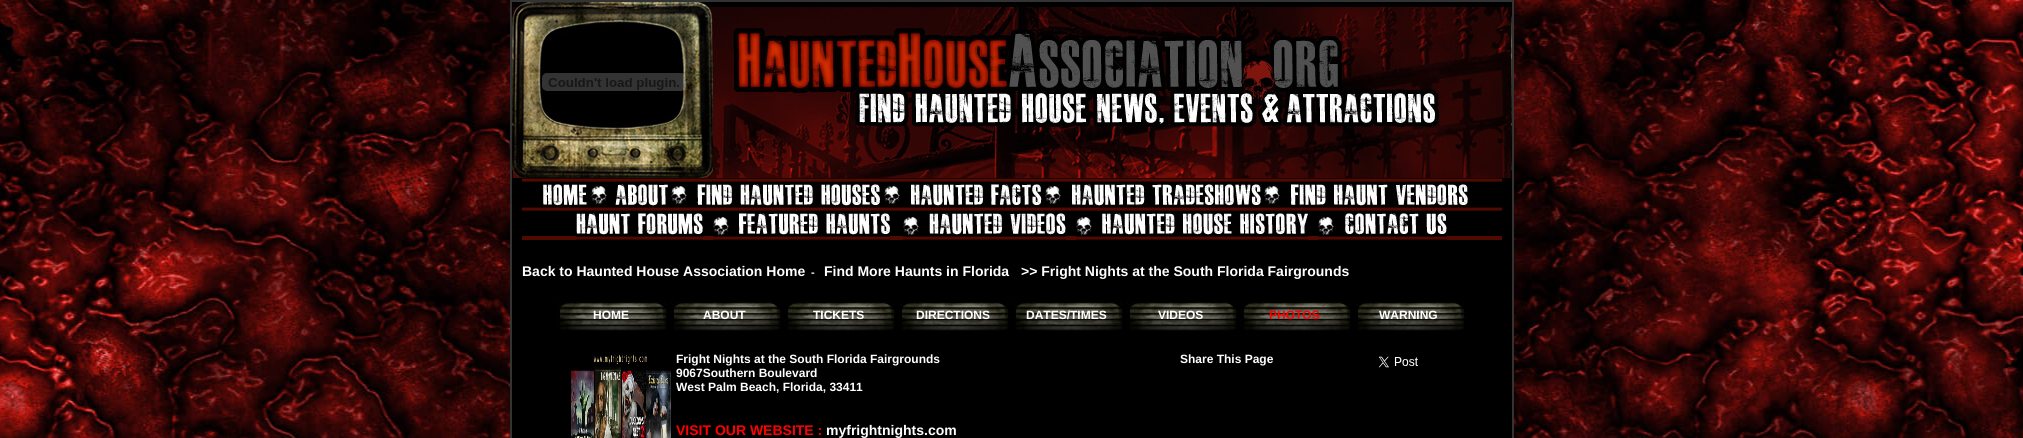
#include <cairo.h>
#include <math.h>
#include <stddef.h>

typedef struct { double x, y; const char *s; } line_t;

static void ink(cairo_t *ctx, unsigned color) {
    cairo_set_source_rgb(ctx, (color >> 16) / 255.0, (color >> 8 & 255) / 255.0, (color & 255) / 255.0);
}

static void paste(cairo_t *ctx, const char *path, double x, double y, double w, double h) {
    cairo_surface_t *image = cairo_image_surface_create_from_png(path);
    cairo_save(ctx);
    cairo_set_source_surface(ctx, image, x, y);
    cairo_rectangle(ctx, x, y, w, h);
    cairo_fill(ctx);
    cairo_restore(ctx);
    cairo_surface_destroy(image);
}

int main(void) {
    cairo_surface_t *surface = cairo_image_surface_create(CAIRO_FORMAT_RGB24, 2023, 438);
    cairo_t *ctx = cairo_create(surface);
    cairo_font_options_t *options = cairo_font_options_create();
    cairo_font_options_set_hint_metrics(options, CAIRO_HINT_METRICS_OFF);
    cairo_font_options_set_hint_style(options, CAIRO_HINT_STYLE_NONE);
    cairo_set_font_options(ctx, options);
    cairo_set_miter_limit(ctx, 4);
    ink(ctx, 0xFFFFFF);
    cairo_paint(ctx);
    paste(ctx, "media/1.png", 0, 0, 2023, 438);
    ink(ctx, 0x000000);
    cairo_rectangle(ctx, 512, 178, 1000, 260);
    cairo_fill(ctx);
    cairo_rectangle(ctx, 511, 1, 1002, 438);
    ink(ctx, 0x333333);
    cairo_stroke(ctx);
    paste(ctx, "media/2.png", 512, 2, 1000, 176);
    paste(ctx, "media/3.png", 542, 73, 144, 18);
    paste(ctx, "media/4.png", 522, 178, 980, 33);
    paste(ctx, "media/5.png", 543, 178, 45, 33);
    paste(ctx, "media/6.png", 591, 179, 77, 31);
    paste(ctx, "media/7.png", 671, 178, 209, 33);
    paste(ctx, "media/8.png", 884, 178, 158, 33);
    paste(ctx, "media/9.png", 1045, 178, 216, 33);
    paste(ctx, "media/10.png", 1264, 178, 204, 33);
    ink(ctx, 0x500A00);
    cairo_rectangle(ctx, 522, 236, 980, 4);
    cairo_fill(ctx);
    paste(ctx, "media/11.png", 576, 211, 127, 29);
    paste(ctx, "media/12.png", 713, 211, 177, 29);
    paste(ctx, "media/13.png", 903, 211, 163, 29);
    paste(ctx, "media/14.png", 1076, 211, 232, 29);
    paste(ctx, "media/15.png", 1318, 211, 129, 29);
    cairo_select_font_face(ctx, "Liberation Sans", CAIRO_FONT_SLANT_NORMAL, CAIRO_FONT_WEIGHT_BOLD);
    cairo_set_font_size(ctx, 14);
    ink(ctx, 0xFFFFFF);
    cairo_move_to(ctx, 522, 276);
    cairo_show_text(ctx, "Back to Haunted House Association Home");
    cairo_set_font_size(ctx, 11);
    cairo_move_to(ctx, 811, 276);
    cairo_show_text(ctx, "-");
    cairo_set_font_size(ctx, 14);
    cairo_move_to(ctx, 824, 276);
    cairo_show_text(ctx, "Find More Haunts in Florida");
    cairo_move_to(ctx, 1021, 276);
    cairo_show_text(ctx, ">> Fright Nights at the South Florida Fairgrounds");
    paste(ctx, "media/16.png", 556, 301, 112, 30);
    cairo_set_font_size(ctx, 12);
    cairo_move_to(ctx, 593, 319);
    cairo_show_text(ctx, "HOME");
    paste(ctx, "media/16.png", 670, 301, 112, 30);
    cairo_move_to(ctx, 703, 319);
    cairo_show_text(ctx, "ABOUT");
    paste(ctx, "media/16.png", 784, 301, 112, 30);
    cairo_move_to(ctx, 813, 319);
    cairo_show_text(ctx, "TICKETS");
    paste(ctx, "media/16.png", 898, 301, 112, 30);
    cairo_move_to(ctx, 916, 319);
    cairo_show_text(ctx, "DIRECTIONS");
    paste(ctx, "media/16.png", 1012, 301, 112, 30);
    cairo_move_to(ctx, 1026, 319);
    cairo_show_text(ctx, "DATES/TIMES");
    paste(ctx, "media/16.png", 1126, 301, 112, 30);
    cairo_move_to(ctx, 1158, 319);
    cairo_show_text(ctx, "VIDEOS");
    paste(ctx, "media/16.png", 1240, 301, 112, 30);
    ink(ctx, 0xFF0000);
    cairo_move_to(ctx, 1269, 319);
    cairo_show_text(ctx, "PHOTOS");
    paste(ctx, "media/16.png", 1354, 301, 112, 30);
    ink(ctx, 0xFFFFFF);
    cairo_move_to(ctx, 1379, 319);
    cairo_show_text(ctx, "WARNING");
    paste(ctx, "media/17.png", 571, 352, 100, 86);
    {
        static const line_t items[] = {
            {676, 363, "Fright Nights at the South Florida Fairgrounds"},
            {676, 377, "9067Southern Boulevard"},
            {676, 391, "West Palm Beach, Florida, 33411"},
        };
        for (size_t i = 0; i < sizeof items / sizeof *items; i++) {
            cairo_move_to(ctx, items[i].x, items[i].y);
            cairo_show_text(ctx, items[i].s);
        }
    }
    cairo_set_font_size(ctx, 14);
    ink(ctx, 0xFF0000);
    cairo_move_to(ctx, 676, 435);
    cairo_show_text(ctx, "VISIT OUR WEBSITE :");
    ink(ctx, 0xFFFFFF);
    cairo_move_to(ctx, 826, 435);
    cairo_show_text(ctx, "myfrightnights.com");
    cairo_set_font_size(ctx, 12);
    cairo_move_to(ctx, 1180, 363);
    cairo_show_text(ctx, "Share This Page");
    paste(ctx, "media/18.png", 1378, 356, 40, 12);
    cairo_surface_write_to_png(surface, "image.png");
    cairo_font_options_destroy(options);
    cairo_destroy(ctx);
    cairo_surface_destroy(surface);
    return 0;
}
